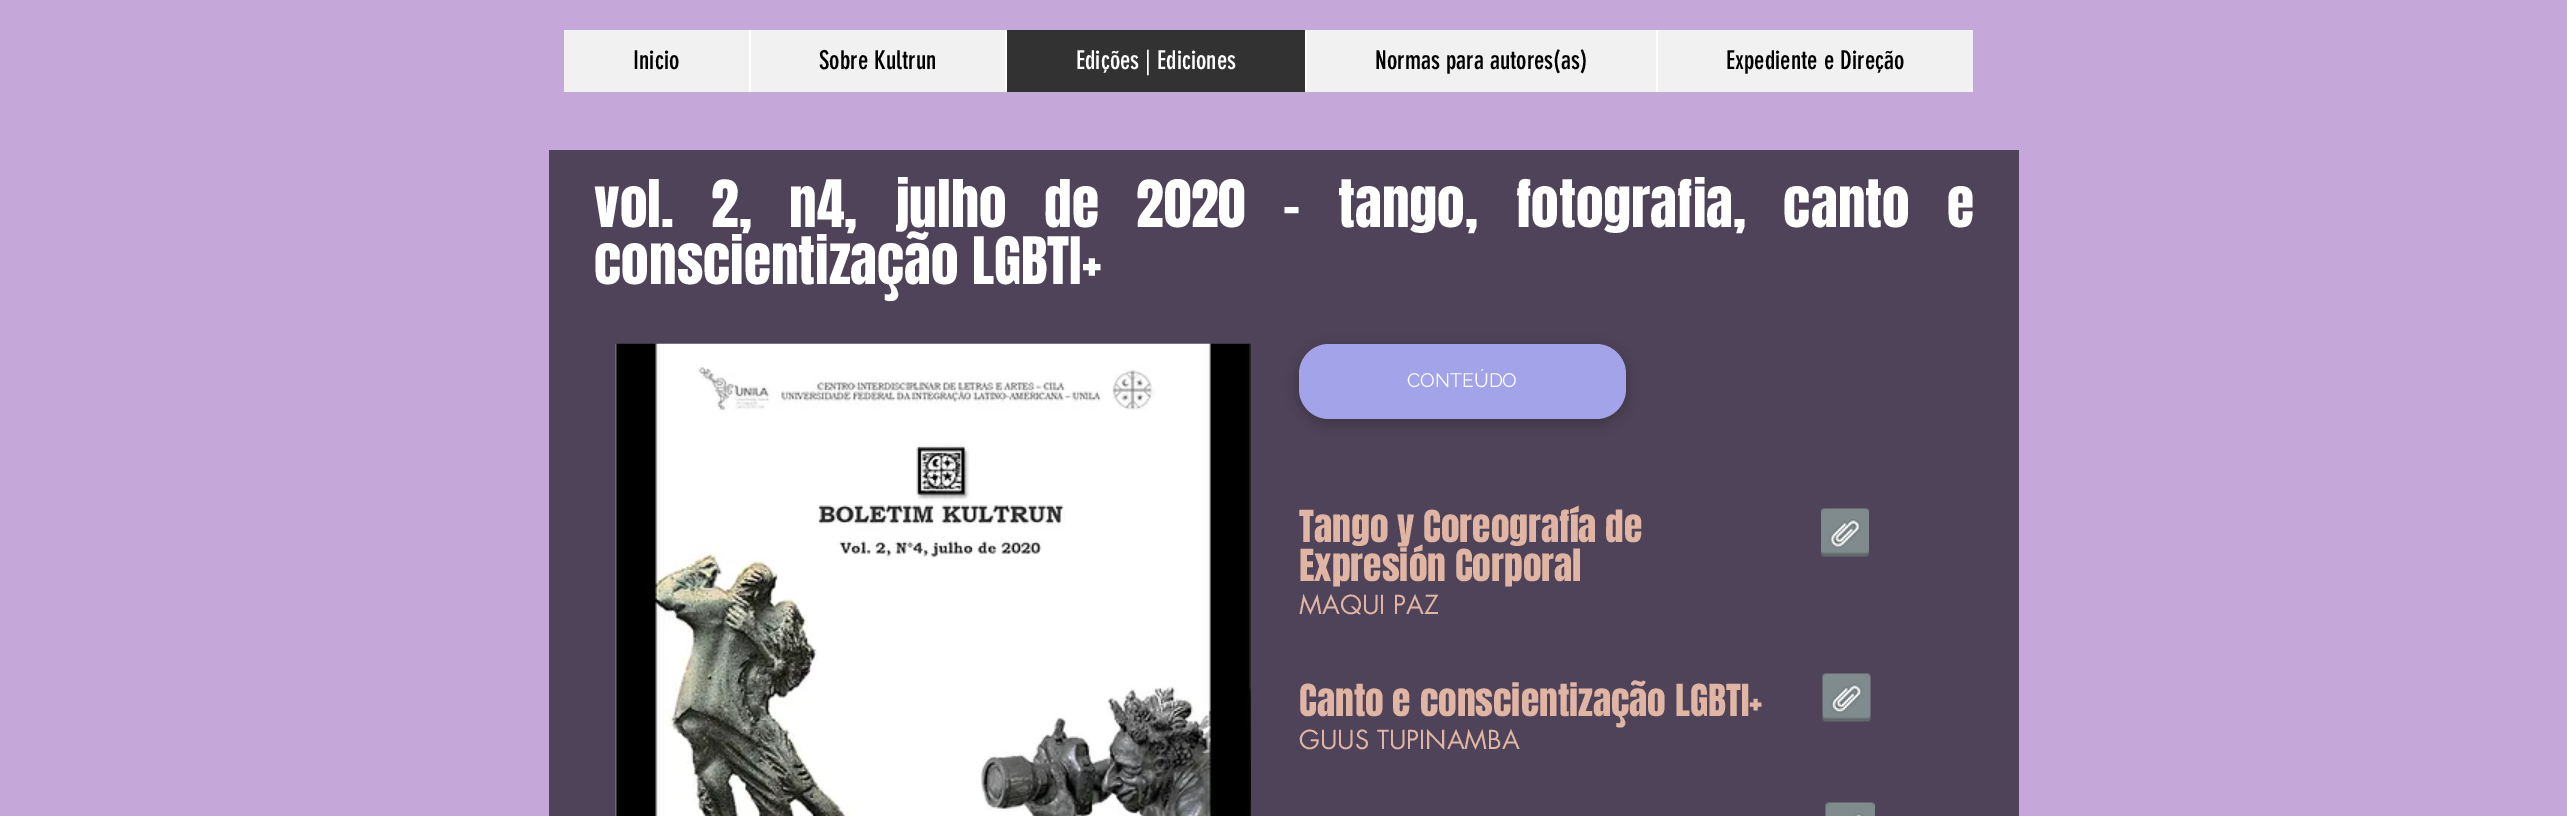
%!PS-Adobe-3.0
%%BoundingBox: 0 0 2567 816
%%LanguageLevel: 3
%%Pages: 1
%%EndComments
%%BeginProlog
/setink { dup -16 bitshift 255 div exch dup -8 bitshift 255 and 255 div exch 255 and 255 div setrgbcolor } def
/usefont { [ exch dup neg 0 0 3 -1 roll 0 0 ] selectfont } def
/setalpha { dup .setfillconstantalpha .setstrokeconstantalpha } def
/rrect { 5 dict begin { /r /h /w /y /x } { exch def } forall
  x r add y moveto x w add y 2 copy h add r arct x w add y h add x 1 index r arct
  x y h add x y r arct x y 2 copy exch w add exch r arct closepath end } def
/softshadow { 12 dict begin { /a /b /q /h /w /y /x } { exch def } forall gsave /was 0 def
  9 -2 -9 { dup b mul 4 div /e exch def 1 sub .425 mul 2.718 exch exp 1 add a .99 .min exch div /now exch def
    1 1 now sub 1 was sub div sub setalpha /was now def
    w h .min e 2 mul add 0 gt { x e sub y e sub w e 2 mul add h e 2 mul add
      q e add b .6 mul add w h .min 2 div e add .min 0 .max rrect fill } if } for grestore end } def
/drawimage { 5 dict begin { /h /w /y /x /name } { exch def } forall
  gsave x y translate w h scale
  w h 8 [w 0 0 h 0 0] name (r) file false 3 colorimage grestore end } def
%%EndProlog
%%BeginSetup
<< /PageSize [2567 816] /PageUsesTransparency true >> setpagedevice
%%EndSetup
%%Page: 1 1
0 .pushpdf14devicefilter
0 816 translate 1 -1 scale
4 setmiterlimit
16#C5A7D9 setink
0 0 2567 816 rectfill
16#F1F1F1 setink
564 30 1409 62 rectfill
/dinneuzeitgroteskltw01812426-Regular 25.5 usefont
16#000000 setink
633 69 moveto (Inicio) show
16#FFFFFF setink
749 30 2 62 rectfill
16#000000 setink
819 69 moveto (Sobre Kultrun) show
16#323232 setink
1007 30 298 62 rectfill
16#FFFFFF setink
1005 30 2 62 rectfill
1076 69 moveto (Edições | Ediciones) show
1305 30 2 62 rectfill
16#000000 setink
1375 69 moveto (Normas para autores\(as\)) show
16#FFFFFF setink
1656 30 2 62 rectfill
16#000000 setink
1726 69 moveto (Expediente e Direção) show
16#4E4358 setink
549 150 1470 666 rectfill
/Anton-Regular 55.5 usefont
16#FFFFFF setink
594 227 moveto 24.5 0 32 (vol. 2, n4, julho de 2020 - tango, fotografia, canto e) widthshow
594 284 moveto (conscientização LGBTI+) show
(img1.raw) 615 343 636 473 drawimage
16#000000 setink
1299 348 327 75 30 7 0.23 softshadow
16#A2A3E9 setink
1299 344 327 75 30 rrect fill
/Raleway-Regular 19.5 usefont
16#FFFFFF setink
1407 387 moveto (CONTEÚDO) show
/Anton-Regular 37.5 usefont
16#E0B5A4 setink
1299 542 moveto (Tango y Coreografía de) show
1299 581 moveto (Expresión Corporal) show
(img2.raw) 1821 508 48 49 drawimage
/futura-Regular 25.5 usefont
1299 614 moveto (MAQUI PAZ) show
/Anton-Regular 37.5 usefont
1299 716 moveto (Canto e conscientização LGBTI+) show
(img3.raw) 1822 673 49 49 drawimage
/futura-Regular 25.5 usefont
1299 749 moveto (GUUS TUPINAMBA) show
(img4.raw) 1825 802 50 14 drawimage
.poppdf14devicefilter showpage
%%EOF
